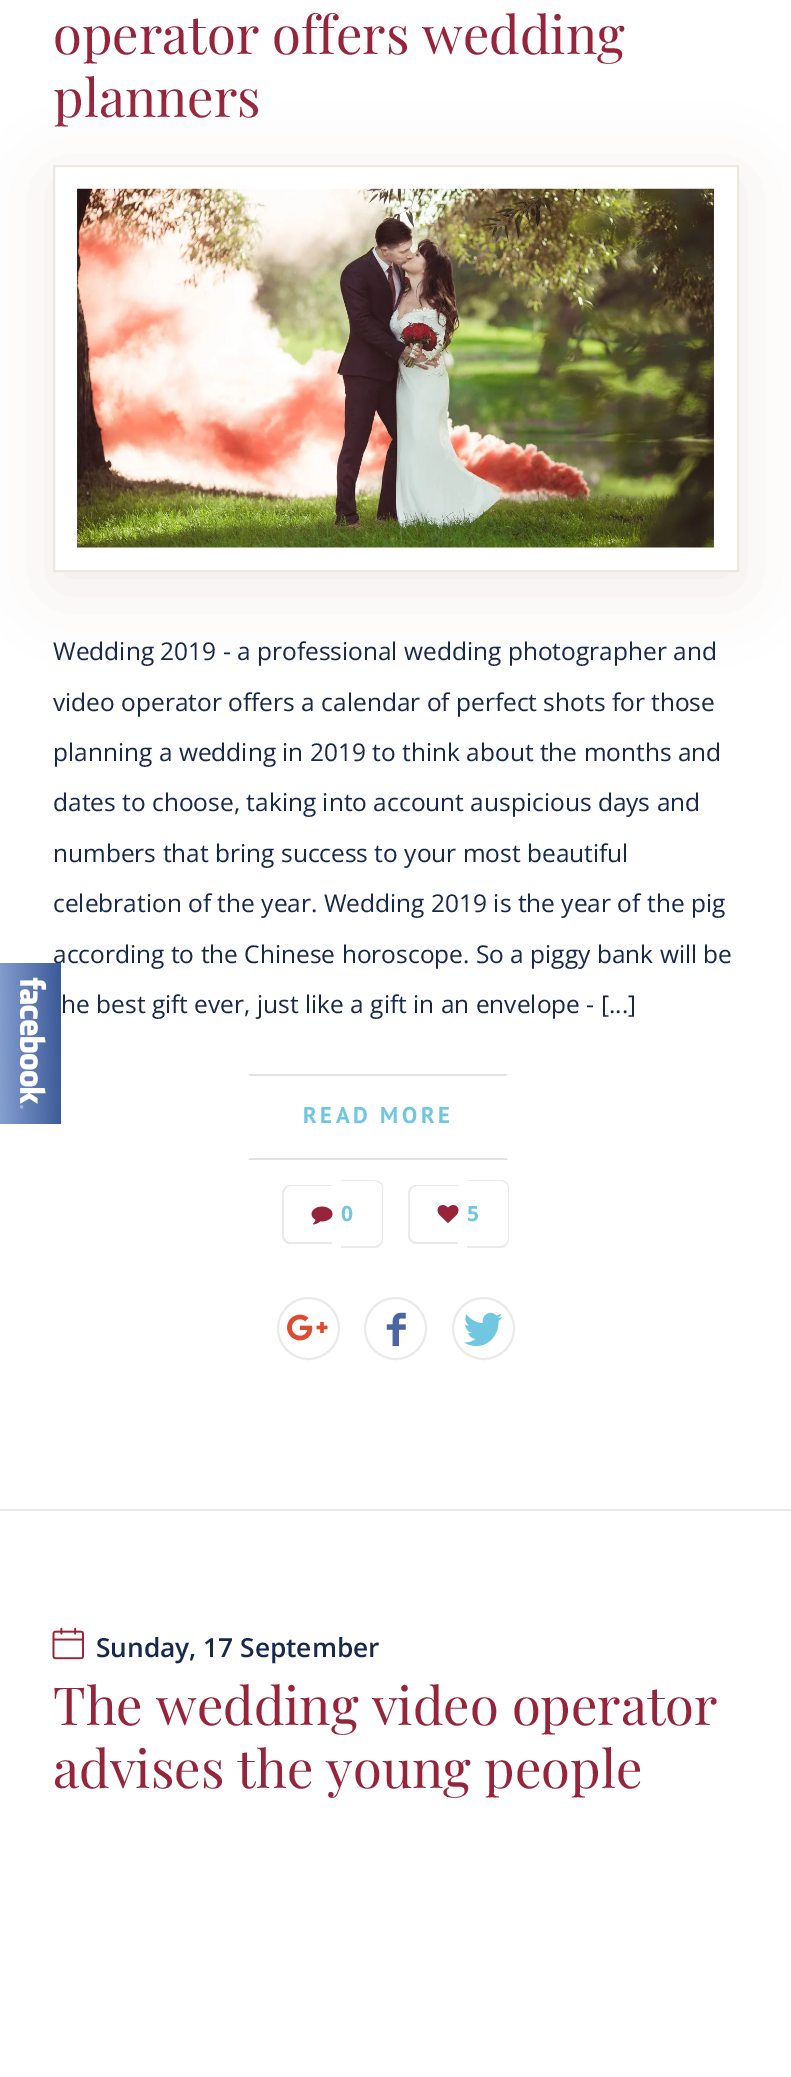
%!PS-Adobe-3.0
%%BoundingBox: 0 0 791 2077
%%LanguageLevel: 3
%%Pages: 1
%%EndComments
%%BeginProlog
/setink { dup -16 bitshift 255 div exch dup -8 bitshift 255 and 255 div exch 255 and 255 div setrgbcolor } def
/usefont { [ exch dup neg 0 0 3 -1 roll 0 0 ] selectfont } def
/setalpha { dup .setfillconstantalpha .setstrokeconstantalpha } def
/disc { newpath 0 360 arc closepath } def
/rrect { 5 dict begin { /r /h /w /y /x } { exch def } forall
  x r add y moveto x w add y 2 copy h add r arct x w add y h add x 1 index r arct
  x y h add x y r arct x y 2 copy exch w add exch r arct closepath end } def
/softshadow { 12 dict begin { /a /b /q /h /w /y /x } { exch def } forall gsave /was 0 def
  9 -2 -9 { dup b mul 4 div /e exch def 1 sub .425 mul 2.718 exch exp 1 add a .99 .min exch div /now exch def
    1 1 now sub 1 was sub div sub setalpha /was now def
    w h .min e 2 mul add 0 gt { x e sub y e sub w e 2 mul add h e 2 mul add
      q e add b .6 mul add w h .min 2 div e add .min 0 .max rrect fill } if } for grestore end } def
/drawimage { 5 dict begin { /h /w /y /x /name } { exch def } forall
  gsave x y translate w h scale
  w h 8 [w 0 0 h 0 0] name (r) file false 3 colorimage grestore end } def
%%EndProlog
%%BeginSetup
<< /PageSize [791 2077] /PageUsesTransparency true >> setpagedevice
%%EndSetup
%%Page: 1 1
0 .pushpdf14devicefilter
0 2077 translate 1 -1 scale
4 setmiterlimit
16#FFFFFF setink
0 0 791 2077 rectfill
/OpenSans-Regular 24.5 usefont
16#17284D setink
53 963 moveto (according to the Chinese horoscope. So a piggy bank will be) show
(img1.raw) 0 963 61 161 drawimage
/PlayfairDisplay-Regular 52.5 usefont
16#96243A setink
53 54 moveto (operator offers wedding) show
53 117 moveto (planners) show
16#EAE4DF setink
53 180 686 408 0 35 0.68 softshadow
16#FFFFFF setink
54 166 moveto 738 166 lineto 738 571 lineto 54 571 lineto closepath gsave fill grestore
16#ECE8DF setink
2 setlinewidth
stroke
(img2.raw) 77 188 637 360 drawimage
/OpenSans-Regular 24.5 usefont
16#17284D setink
[
    [(Wedding 2019 - a professional wedding photographer and) 53 660]
    [(video operator offers a calendar of perfect shots for those) 53 711]
    [(planning a wedding in 2019 to think about the months and) 53 761]
    [(dates to choose, taking into account auspicious days and) 53 811]
    [(numbers that bring success to your most beautiful) 53 862]
    [(celebration of the year. Wedding 2019 is the year of the pig) 53 912]
    [(he best gift ever, just like a gift in an envelope - [...]) 61 1013]
] { aload pop moveto show } forall
16#E2E2E2 setink
248 1074 moveto 508 1074 lineto 506 1076 lineto 250 1076 lineto closepath fill
508 1160 moveto 248 1160 lineto 250 1158 lineto 506 1158 lineto closepath fill
/PTSans-Bold 22.75 usefont
16#71C7E0 setink
303 1123 moveto 3.5 0 (READ MORE) ashow
16#EAEAEA setink
290 1185 moveto 332 1185 lineto 332 1244 lineto 290 1244 lineto 286 1244 282 1240 282 1236 curveto 282 1194 lineto 282 1189 286 1185 290 1185 curveto closepath 290 1186 moveto 332 1186 lineto 332 1242 lineto 290 1242 lineto 287 1242 284 1239 284 1236 curveto 284 1194 lineto 284 1190 287 1186 290 1186 curveto closepath eofill
341 1180 moveto 374 1180 lineto 379 1180 383 1183 383 1188 curveto 383 1239 lineto 383 1244 379 1248 374 1248 curveto 341 1248 lineto closepath 341 1181 moveto 374 1181 lineto 378 1181 382 1184 382 1188 curveto 382 1239 lineto 382 1243 378 1246 374 1246 curveto 341 1246 lineto closepath eofill
(img3.raw) 311 1206 22 19 drawimage
/OpenSans-Bold 21 usefont
16#71C7E0 setink
341 1221 moveto (0) show
16#EAEAEA setink
416 1185 moveto 458 1185 lineto 458 1244 lineto 416 1244 lineto 412 1244 408 1240 408 1236 curveto 408 1194 lineto 408 1189 412 1185 416 1185 curveto closepath 416 1186 moveto 458 1186 lineto 458 1242 lineto 416 1242 lineto 413 1242 410 1239 410 1236 curveto 410 1194 lineto 410 1190 413 1186 416 1186 curveto closepath eofill
467 1180 moveto 500 1180 lineto 505 1180 509 1183 509 1188 curveto 509 1239 lineto 509 1244 505 1248 500 1248 curveto 467 1248 lineto closepath 467 1181 moveto 500 1181 lineto 504 1181 508 1184 508 1188 curveto 508 1239 lineto 508 1243 504 1246 500 1246 curveto 467 1246 lineto closepath eofill
(img4.raw) 437 1205 22 18 drawimage
16#71C7E0 setink
467 1221 moveto (5) show
16#EAEAEA setink
308.5 1328.5 30.5 disc stroke
(img5.raw) 287 1314 41 27 drawimage
395.5 1328.5 30.5 disc stroke
(img6.raw) 386 1312 20 35 drawimage
483.5 1328.5 30.5 disc stroke
(img7.raw) 464 1312 39 35 drawimage
16#E5E7EB setink
0 1509 791 2 rectfill
(img8.raw) 52 1627 32 33 drawimage
/OpenSans-SemiBold 26.25 usefont
16#17284D setink
96 1657 moveto (Sunday, 17 September) show
/PlayfairDisplay-Regular 52.5 usefont
16#96243A setink
53 1725 moveto (The wedding video operator) show
53 1788 moveto (advises the young people) show
.poppdf14devicefilter showpage
%%EOF
